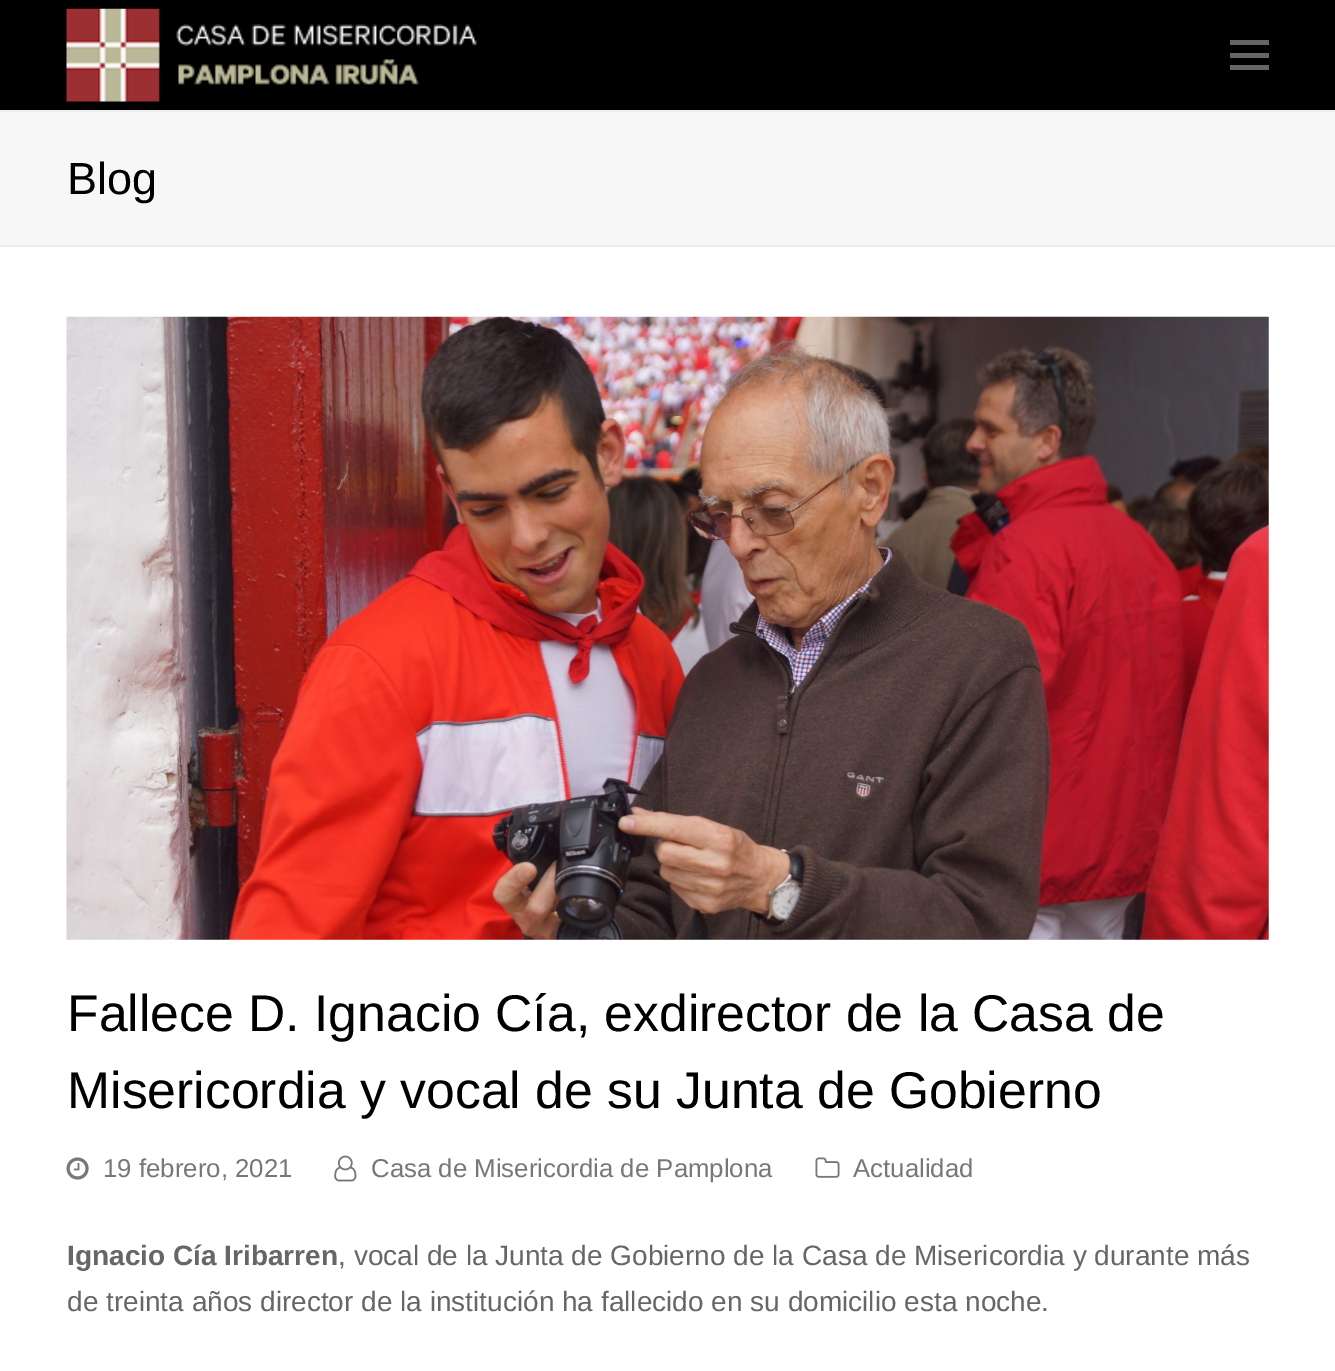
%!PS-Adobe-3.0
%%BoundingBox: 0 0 1335 1371
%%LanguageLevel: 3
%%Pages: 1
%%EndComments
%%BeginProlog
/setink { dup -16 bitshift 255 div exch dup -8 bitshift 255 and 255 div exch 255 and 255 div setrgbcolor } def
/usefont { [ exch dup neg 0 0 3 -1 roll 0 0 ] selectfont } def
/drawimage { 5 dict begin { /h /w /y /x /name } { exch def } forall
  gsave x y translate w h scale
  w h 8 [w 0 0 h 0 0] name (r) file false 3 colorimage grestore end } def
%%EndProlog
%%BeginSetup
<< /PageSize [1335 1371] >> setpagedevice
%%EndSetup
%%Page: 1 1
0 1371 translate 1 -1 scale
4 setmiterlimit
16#FFFFFF setink
0 0 1335 1371 rectfill
16#000000 setink
0 0 1335 110 rectfill
(img1.raw) 66 8 411 94 drawimage
[
    [1230 53 39 5 16#666666]
    [1230 40 39 5 16#666666]
    [1230 65 39 5 16#666666]
    [0 112 1335 133 16#F7F7F7]
    [0 110 1335 2 16#EEEEEE]
    [0 245 1335 2 16#EEEEEE]
] { aload pop setink rectfill } forall
/LiberationSans-Regular 45 usefont
16#000000 setink
67 194 moveto (Blog) show
(img2.raw) 66 316 1203 624 drawimage
/LiberationSans-Regular 51.7 usefont
67 1031 moveto (Fallece D. Ignacio Cía, exdirector de la Casa de) show
67 1108 moveto (Misericordia y vocal de su Junta de Gobierno) show
(img3.raw) 66 1157 23 23 drawimage
/LiberationSans-Regular 25.8 usefont
16#777777 setink
103 1177 moveto (19 febrero, 2021) show
(img4.raw) 334 1155 23 27 drawimage
371 1177 moveto (Casa de Misericordia de Pamplona) show
(img5.raw) 815 1157 25 21 drawimage
853 1177 moveto (Actualidad) show
/LiberationSans-Bold 28 usefont
16#666666 setink
67 1265 moveto (Ignacio Cía Iribarren) show
/LiberationSans-Regular 28 usefont
338 1265 moveto (, vocal de la Junta de Gobierno de la Casa de Misericordia y durante más) show
67 1311 moveto (de treinta años director de la institución ha fallecido en su domicilio esta noche.) show
showpage
%%EOF
